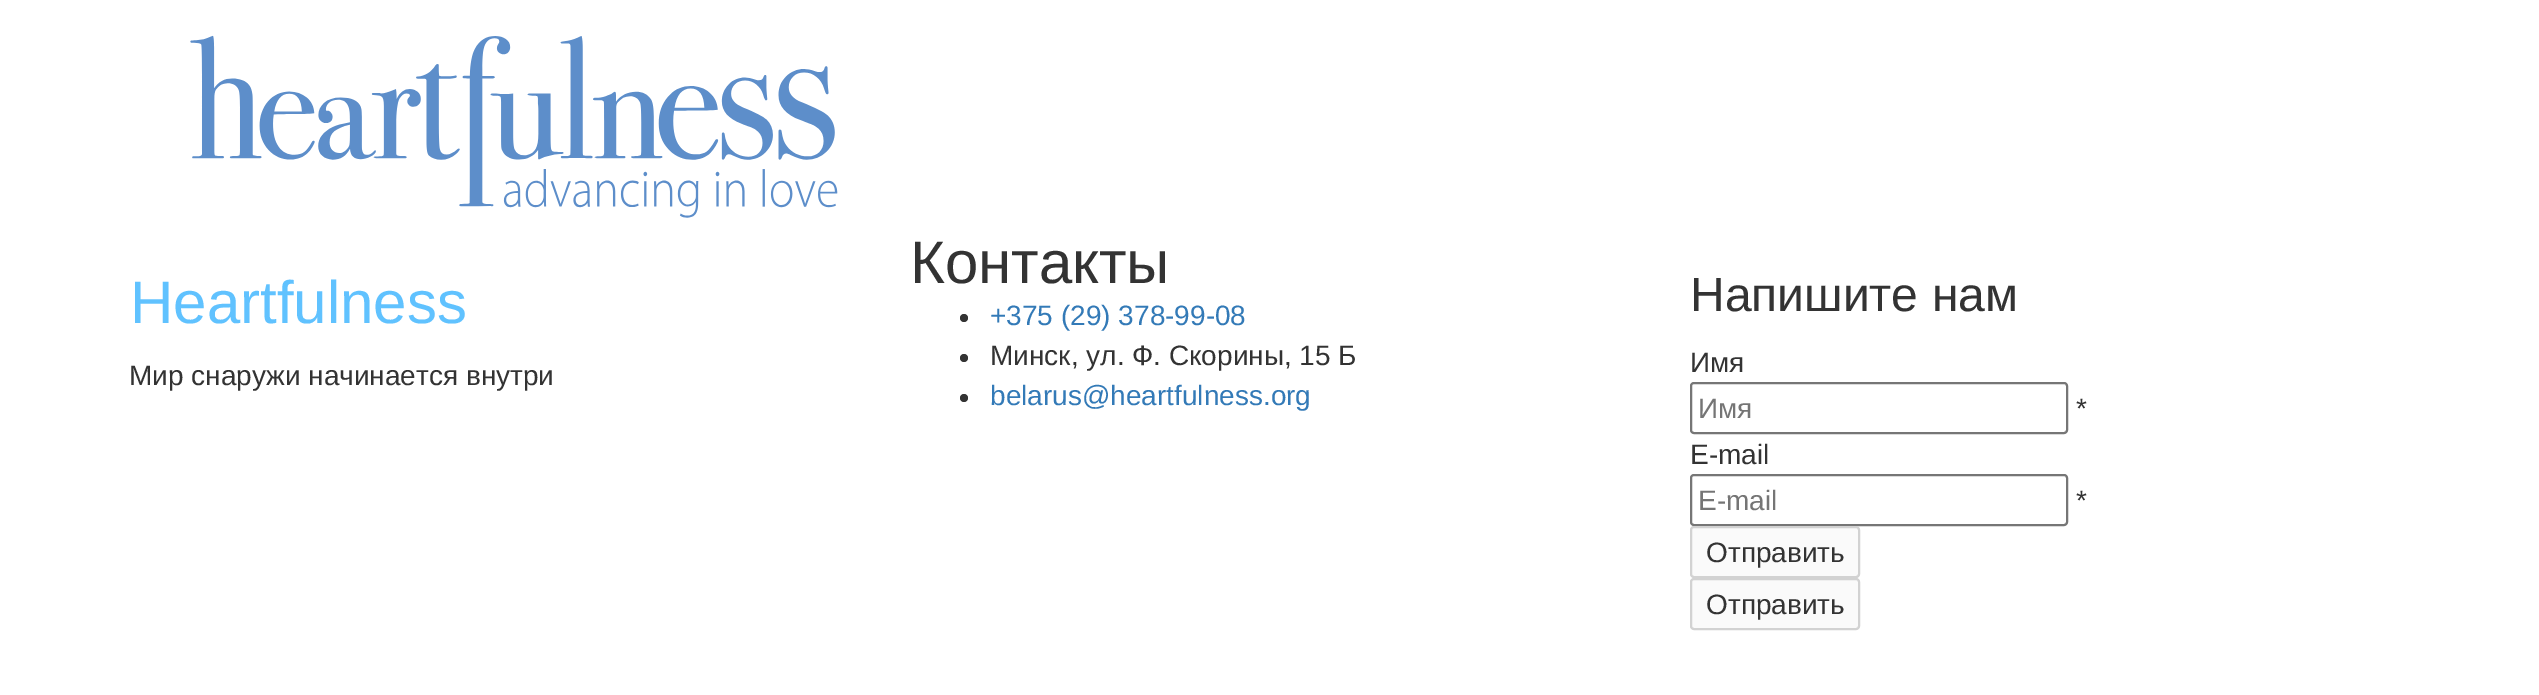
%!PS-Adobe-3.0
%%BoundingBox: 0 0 2539 695
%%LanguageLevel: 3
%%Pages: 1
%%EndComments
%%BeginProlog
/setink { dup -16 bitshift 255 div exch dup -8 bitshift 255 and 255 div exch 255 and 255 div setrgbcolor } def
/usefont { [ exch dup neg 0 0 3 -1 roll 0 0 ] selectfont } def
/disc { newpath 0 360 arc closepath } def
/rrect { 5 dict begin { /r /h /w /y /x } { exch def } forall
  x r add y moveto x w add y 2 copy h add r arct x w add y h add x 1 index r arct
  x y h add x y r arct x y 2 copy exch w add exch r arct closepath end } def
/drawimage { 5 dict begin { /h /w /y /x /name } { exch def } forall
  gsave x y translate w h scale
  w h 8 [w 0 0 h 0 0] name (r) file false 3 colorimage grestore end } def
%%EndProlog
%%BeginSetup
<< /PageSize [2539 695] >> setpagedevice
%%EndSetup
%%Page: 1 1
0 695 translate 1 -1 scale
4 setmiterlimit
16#FFFFFF setink
0 0 2539 695 rectfill
(img1.raw) 190 35 648 183 drawimage
/LiberationSans-Regular 60 usefont
16#60C2FF setink
130 323 moveto (Heartfulness) show
/LiberationSans-Regular 28 usefont
16#333333 setink
129 385 moveto (Мир снаружи начинается внутри) show
/LiberationSans-Regular 60 usefont
910 283 moveto (Контакты) show
964 318 4 disc fill
/LiberationSans-Regular 28 usefont
16#337AB7 setink
990 325 moveto (+375 \(29\) 378-99-08) show
16#333333 setink
964 358 4 disc fill
990 365 moveto (Минск, ул. Ф. Скорины, 15 Б) show
964 398 4 disc fill
16#337AB7 setink
990 405 moveto (belarus@heartfulness.org) show
/LiberationSans-Regular 48 usefont
16#333333 setink
1690 311 moveto (Напишите нам) show
/LiberationSans-Regular 28 usefont
1690 372 moveto (Имя) show
16#767676 setink
2 setlinewidth
1691 383 376 50 3 rrect stroke
16#757575 setink
1698 418 moveto (Имя) show
16#333333 setink
2076 418 moveto (*) show
1690 464 moveto (E-mail) show
16#767676 setink
1691 475 376 50 3 rrect stroke
16#757575 setink
1698 510 moveto (E-mail) show
16#333333 setink
2076 510 moveto (*) show
16#FAFAFA setink
1691 527 168 50 3 rrect gsave fill grestore
16#D2D2D2 setink
stroke
16#333333 setink
1706 562 moveto (Отправить) show
16#FAFAFA setink
1691 579 168 50 3 rrect gsave fill grestore
16#D2D2D2 setink
stroke
16#333333 setink
1706 614 moveto (Отправить) show
showpage
%%EOF
